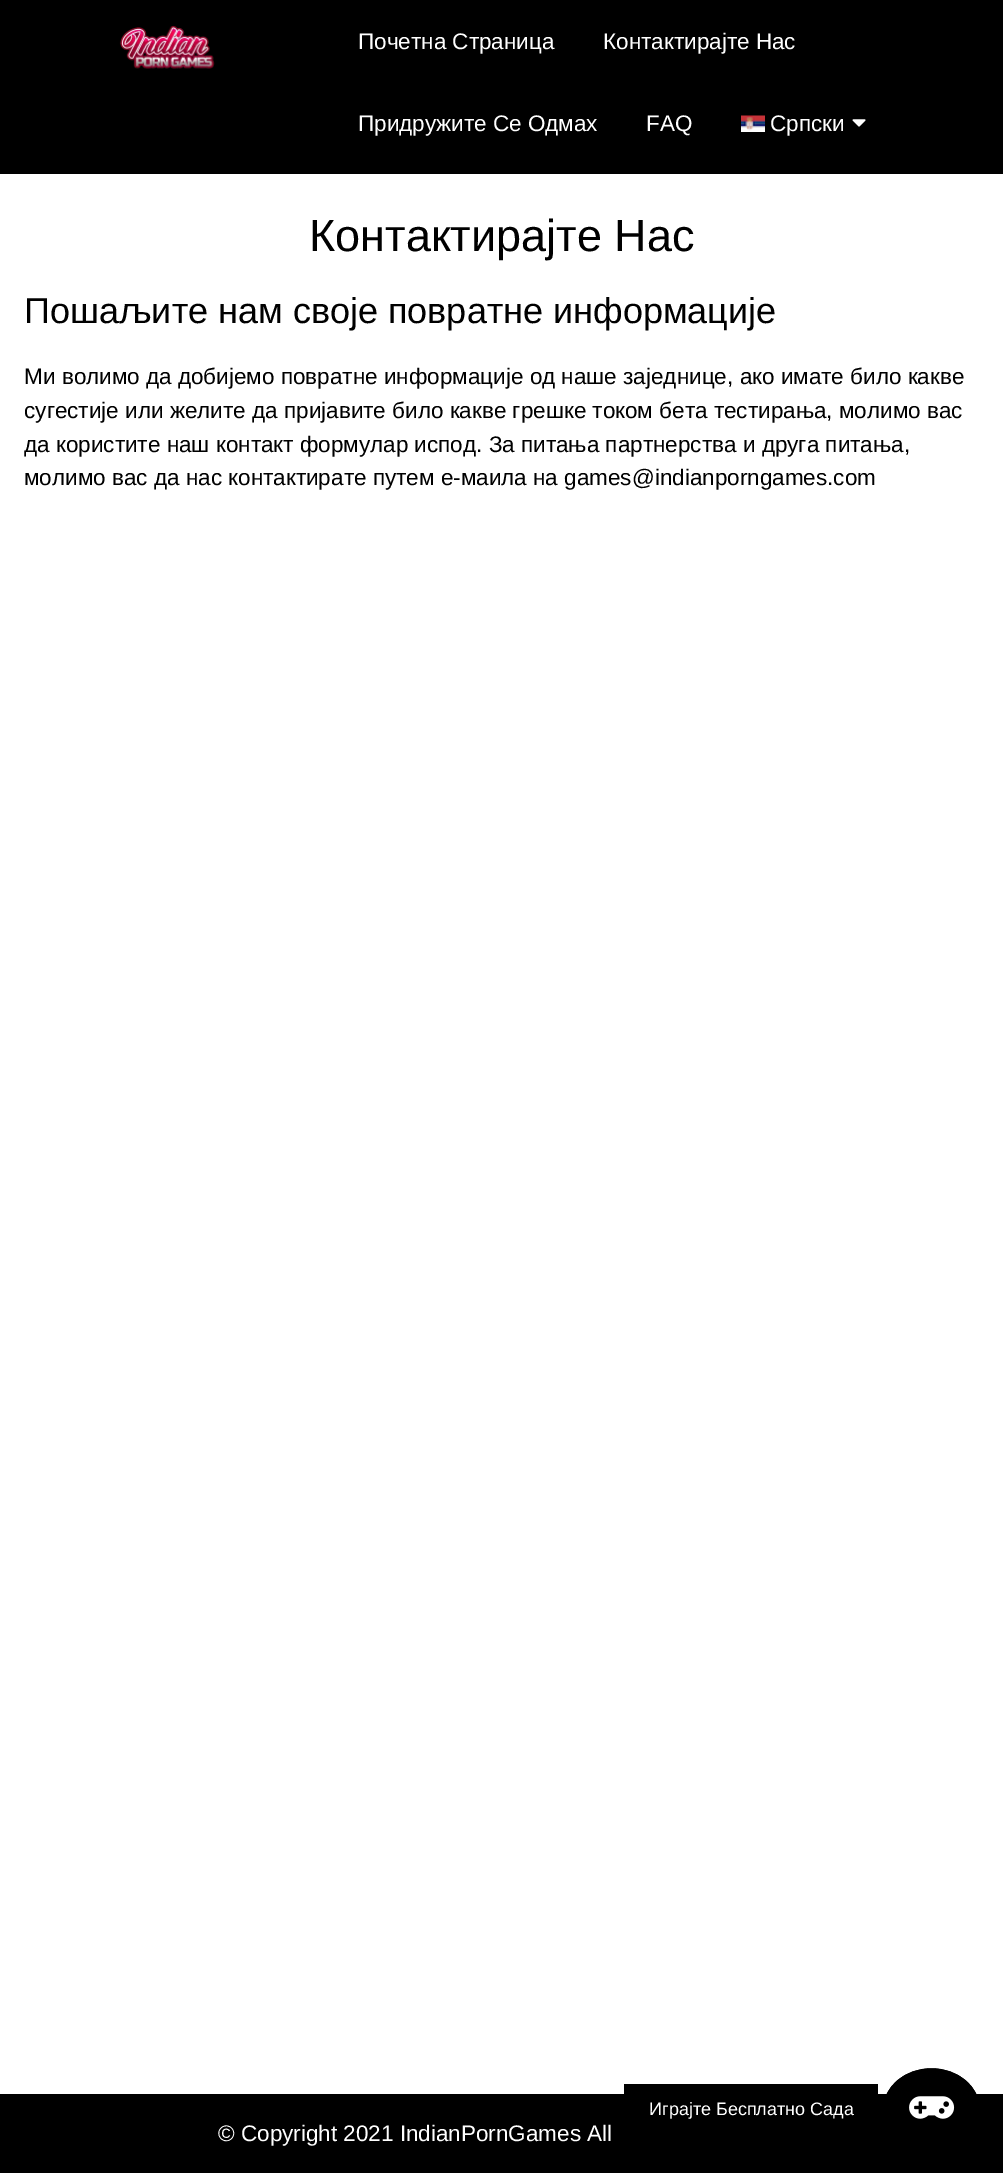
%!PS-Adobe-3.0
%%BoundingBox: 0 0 1003 2173
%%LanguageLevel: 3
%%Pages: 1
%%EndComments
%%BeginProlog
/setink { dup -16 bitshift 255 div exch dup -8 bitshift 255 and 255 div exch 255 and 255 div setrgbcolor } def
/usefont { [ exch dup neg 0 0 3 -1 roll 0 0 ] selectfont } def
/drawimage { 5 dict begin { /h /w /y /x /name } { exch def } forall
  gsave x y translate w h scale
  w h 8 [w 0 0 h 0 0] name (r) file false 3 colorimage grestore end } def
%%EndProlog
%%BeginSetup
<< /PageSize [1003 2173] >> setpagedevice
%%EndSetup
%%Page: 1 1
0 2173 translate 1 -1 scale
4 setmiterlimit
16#FFFFFF setink
0 0 1003 2173 rectfill
16#000000 setink
0 0 1003 174 rectfill
(img1.raw) 119 25 96 44 drawimage
/LiberationSans-Regular 22.5 usefont
16#FFFFFF setink
[
    [(Почетна Страница) 358 49]
    [(Контактирајте Нас) 603 49]
    [(Придружите Се Одмах) 358 131]
    [(FAQ) 646 131]
] { aload pop moveto show } forall
(img2.raw) 741 115 24 17 drawimage
770 131 moveto (Српски) show
(img3.raw) 852 119 14 8 drawimage
/LiberationSans-Regular 45 usefont
16#000000 setink
309 251 moveto (Контактирајте Нас) show
/LiberationSans-Regular 36 usefont
24 323 moveto (Пошаљите нам своје повратне информације) show
/LiberationSans-Regular 22.5 usefont
[
    [(Ми волимо да добијемо повратне информације од наше заједнице, ако имате било какве) 24 384]
    [(сугестије или желите да пријавите било какве грешке током бета тестирања, молимо вас) 24 418]
    [(да користите наш контакт формулар испод. За питања партнерства и друга питања,) 24 452]
    [(молимо вас да нас контактирате путем е-маила на games@indianporngames.com) 24 485]
] { aload pop moveto show } forall
624 2084 254 10 rectfill
0 2094 1003 79 rectfill
/LiberationSans-Regular 18 usefont
16#FFFFFF setink
649 2115 moveto (Играјте Бесплатно Сада) show
16#000000 setink
931.5 2068.5 moveto 958 2068.5 979.5 2086.5 979.5 2109 curveto 979.5 2131.5 958 2149.5 931.5 2149.5 curveto 905 2149.5 883.5 2131.5 883.5 2109 curveto 883.5 2086.5 905 2068.5 931.5 2068.5 curveto closepath fill
1.5 setlinewidth
931.5 2069 moveto 957.5 2069 979 2087 979 2109 curveto 979 2131 957.5 2149 931.5 2149 curveto 905.5 2149 884 2131 884 2109 curveto 884 2087 905.5 2069 931.5 2069 curveto closepath stroke
(img4.raw) 909 2096 46 23 drawimage
/LiberationSans-Regular 22.5 usefont
16#FFFFFF setink
218 2141 moveto (© Copyright 2021 IndianPornGames All) show
showpage
%%EOF
